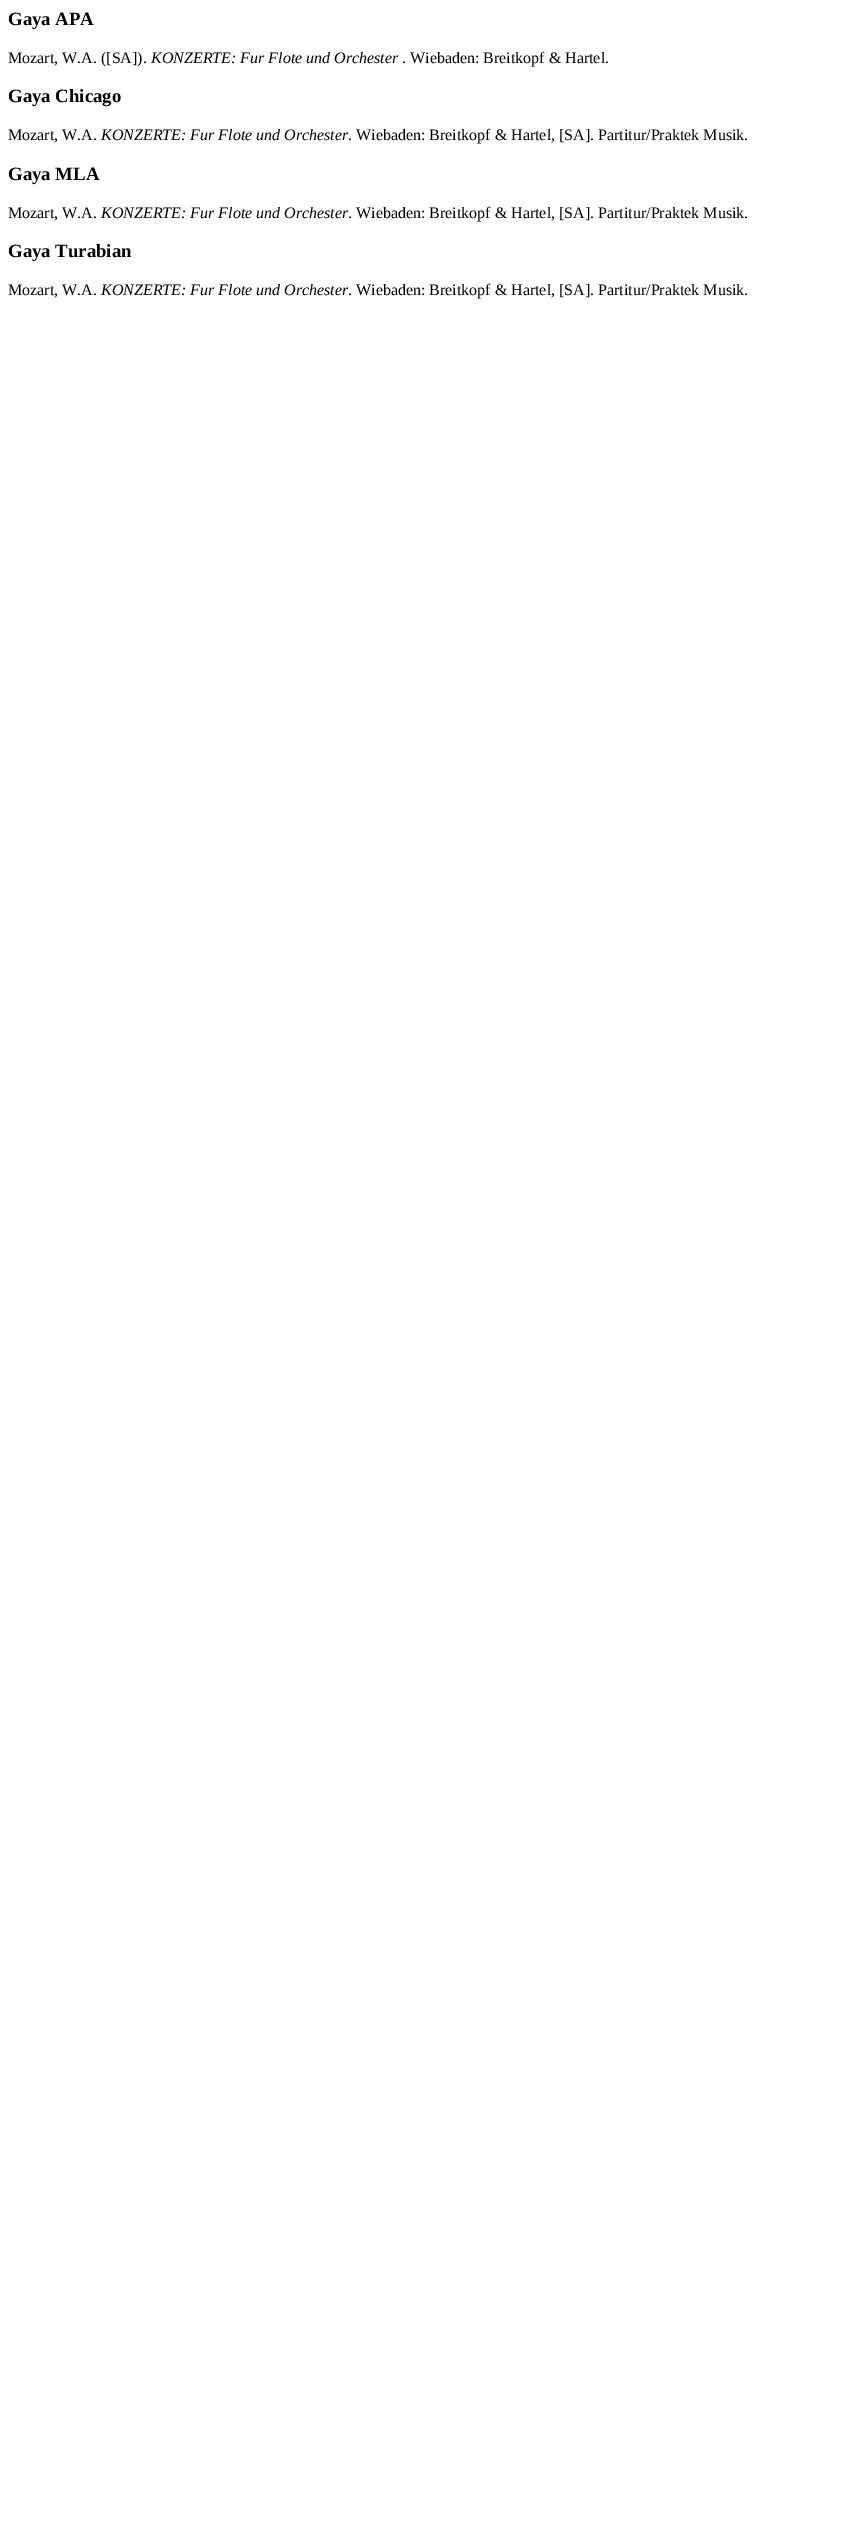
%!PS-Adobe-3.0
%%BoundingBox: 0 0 868 2548
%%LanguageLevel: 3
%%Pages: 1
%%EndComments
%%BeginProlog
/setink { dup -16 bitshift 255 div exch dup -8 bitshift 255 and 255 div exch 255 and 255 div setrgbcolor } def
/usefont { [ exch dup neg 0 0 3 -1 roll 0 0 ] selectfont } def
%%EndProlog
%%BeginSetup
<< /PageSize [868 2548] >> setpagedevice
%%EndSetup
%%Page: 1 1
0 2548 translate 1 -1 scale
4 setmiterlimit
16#FFFFFF setink
0 0 868 2548 rectfill
/LiberationSerif-Bold 18.75 usefont
16#000000 setink
8 25 moveto (Gaya APA) show
/LiberationSerif-Regular 16 usefont
8 63 moveto (Mozart, W.A. \([SA]\).) show
/LiberationSerif-Italic 16 usefont
151 63 moveto (KONZERTE: Fur Flote und Orchester) show
/LiberationSerif-Regular 16 usefont
402 63 moveto (. Wiebaden: Breitkopf & Hartel.) show
/LiberationSerif-Bold 18.75 usefont
8 102 moveto (Gaya Chicago) show
/LiberationSerif-Regular 16 usefont
8 140 moveto (Mozart, W.A.) show
/LiberationSerif-Italic 16 usefont
101 140 moveto (KONZERTE: Fur Flote und Orchester) show
/LiberationSerif-Regular 16 usefont
348 140 moveto (. Wiebaden: Breitkopf & Hartel, [SA]. Partitur/Praktek Musik.) show
/LiberationSerif-Bold 18.75 usefont
8 180 moveto (Gaya MLA) show
/LiberationSerif-Regular 16 usefont
8 218 moveto (Mozart, W.A.) show
/LiberationSerif-Italic 16 usefont
101 218 moveto (KONZERTE: Fur Flote und Orchester) show
/LiberationSerif-Regular 16 usefont
348 218 moveto (. Wiebaden: Breitkopf & Hartel, [SA]. Partitur/Praktek Musik.) show
/LiberationSerif-Bold 18.75 usefont
8 257 moveto (Gaya Turabian) show
/LiberationSerif-Regular 16 usefont
8 295 moveto (Mozart, W.A.) show
/LiberationSerif-Italic 16 usefont
101 295 moveto (KONZERTE: Fur Flote und Orchester) show
/LiberationSerif-Regular 16 usefont
348 295 moveto (. Wiebaden: Breitkopf & Hartel, [SA]. Partitur/Praktek Musik.) show
showpage
%%EOF
